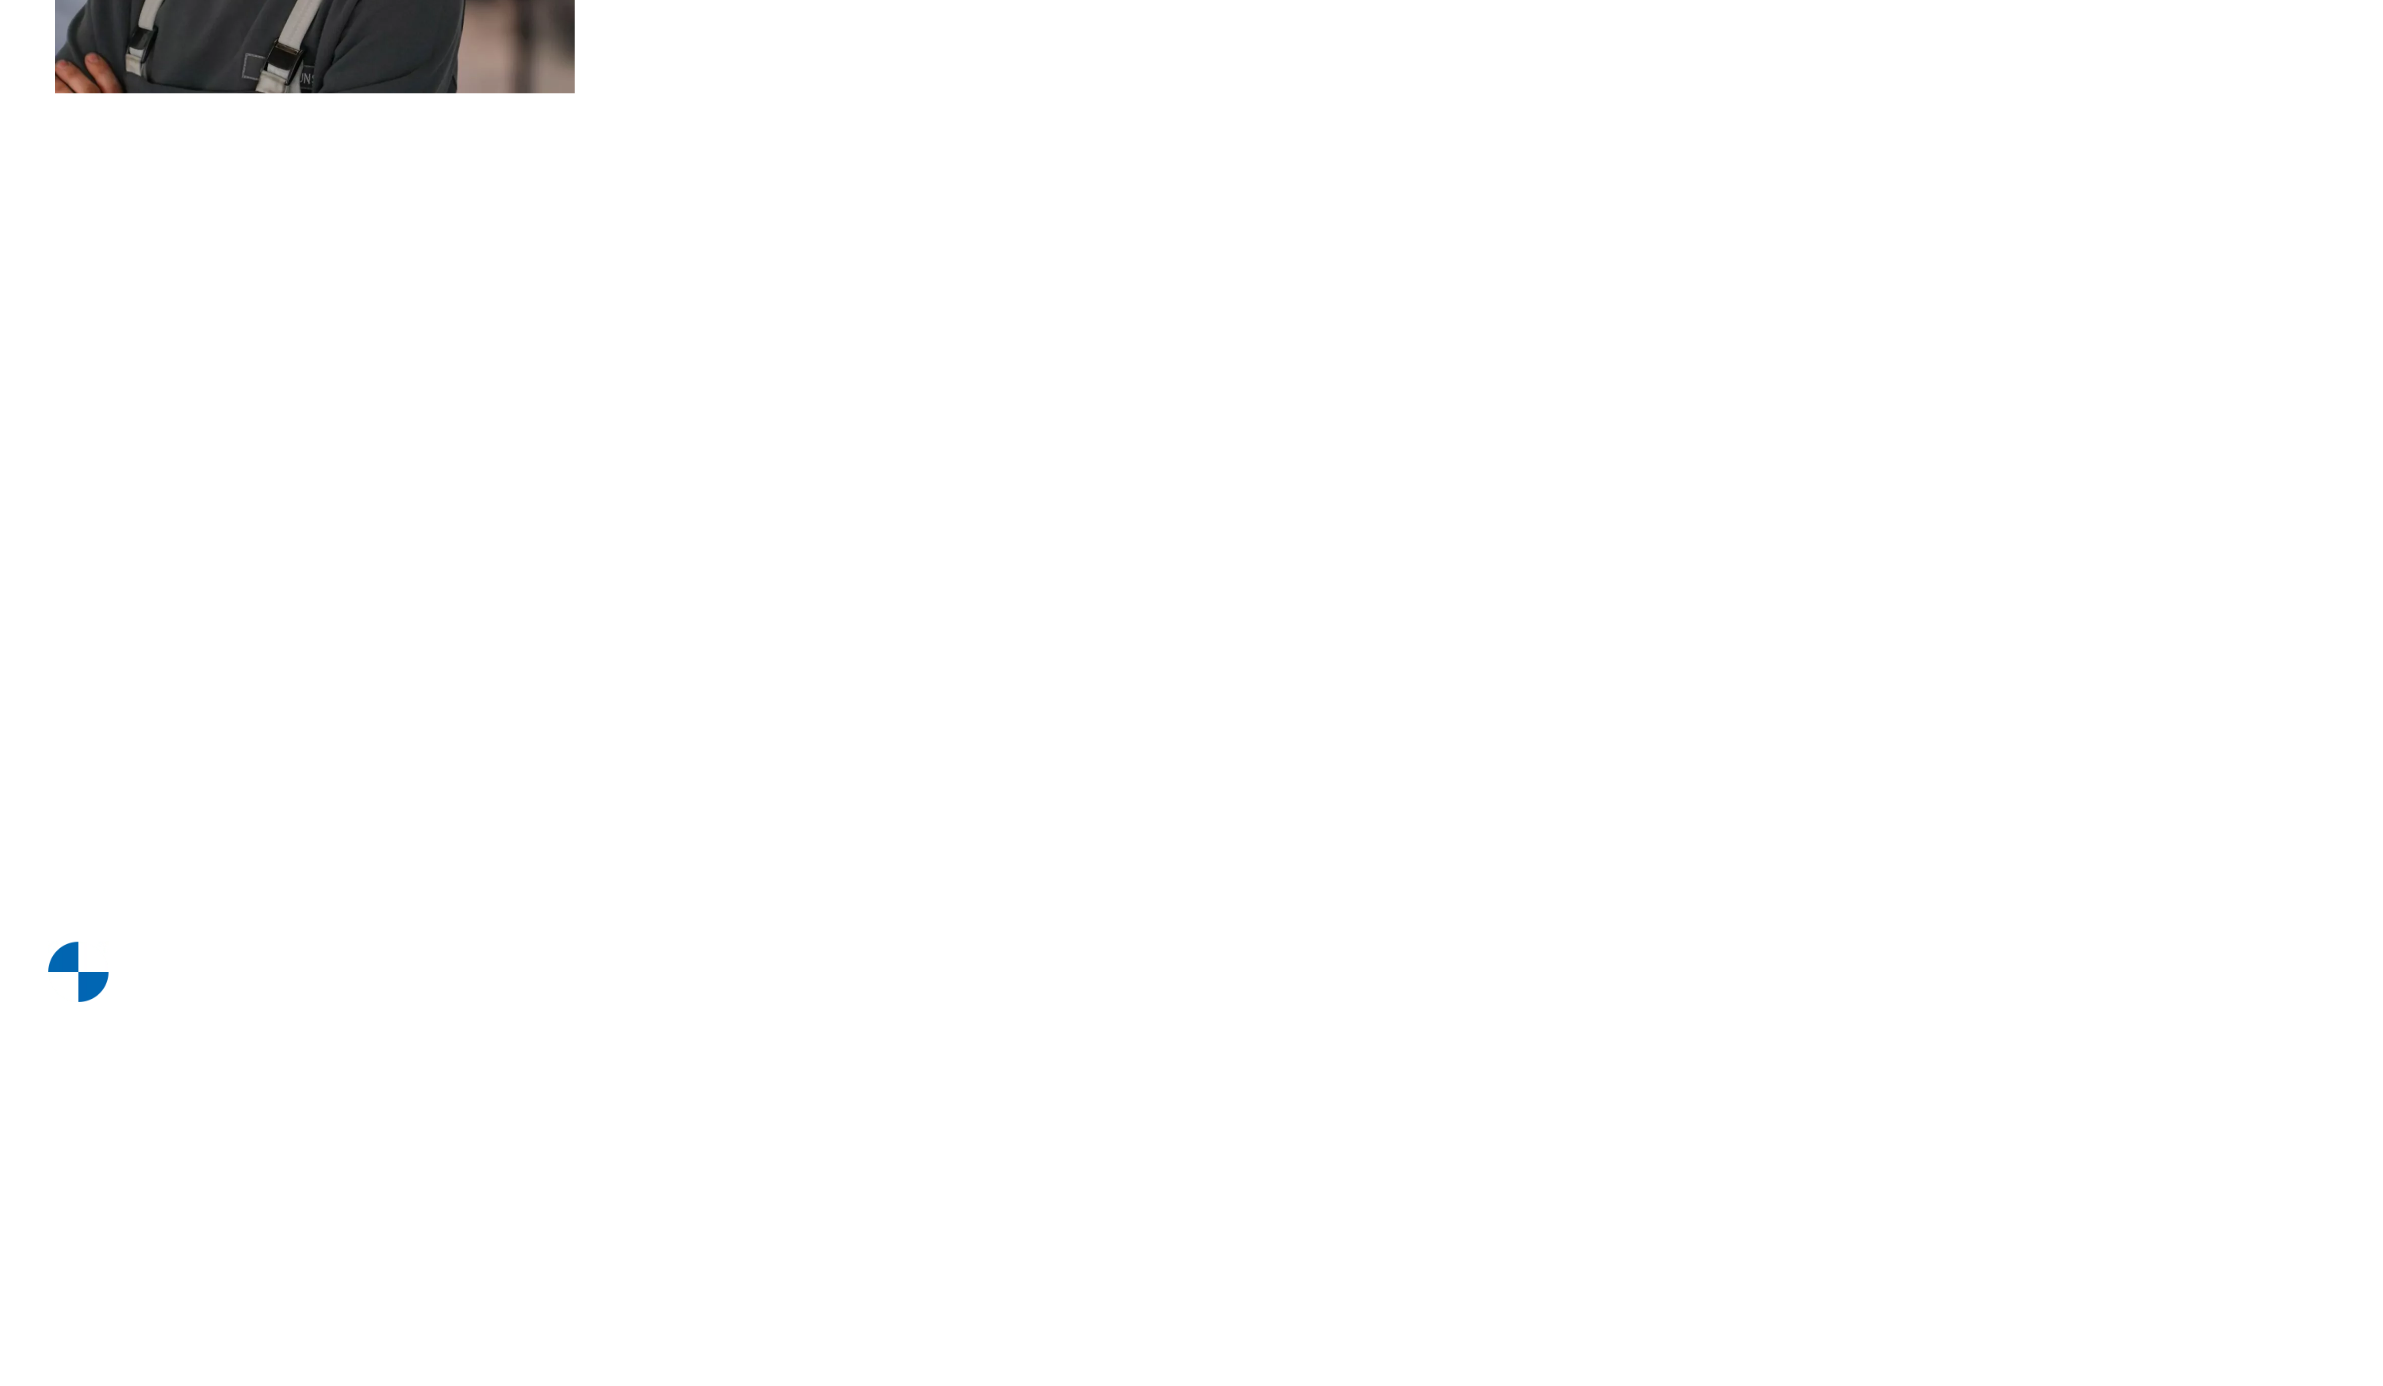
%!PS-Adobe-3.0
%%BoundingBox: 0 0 2383 1386
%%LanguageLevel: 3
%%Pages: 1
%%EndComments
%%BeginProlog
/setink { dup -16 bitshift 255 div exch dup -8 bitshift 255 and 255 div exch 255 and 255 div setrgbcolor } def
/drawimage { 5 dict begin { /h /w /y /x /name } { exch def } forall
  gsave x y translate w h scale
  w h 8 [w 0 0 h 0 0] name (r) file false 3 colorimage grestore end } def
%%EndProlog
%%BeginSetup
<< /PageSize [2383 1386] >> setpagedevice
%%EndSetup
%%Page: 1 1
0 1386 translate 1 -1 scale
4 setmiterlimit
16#FFFFFF setink
0 0 2383 1386 rectfill
(img1.raw) 55 0 520 94 drawimage
(img2.raw) 48 941 61 61 drawimage
showpage
%%EOF
